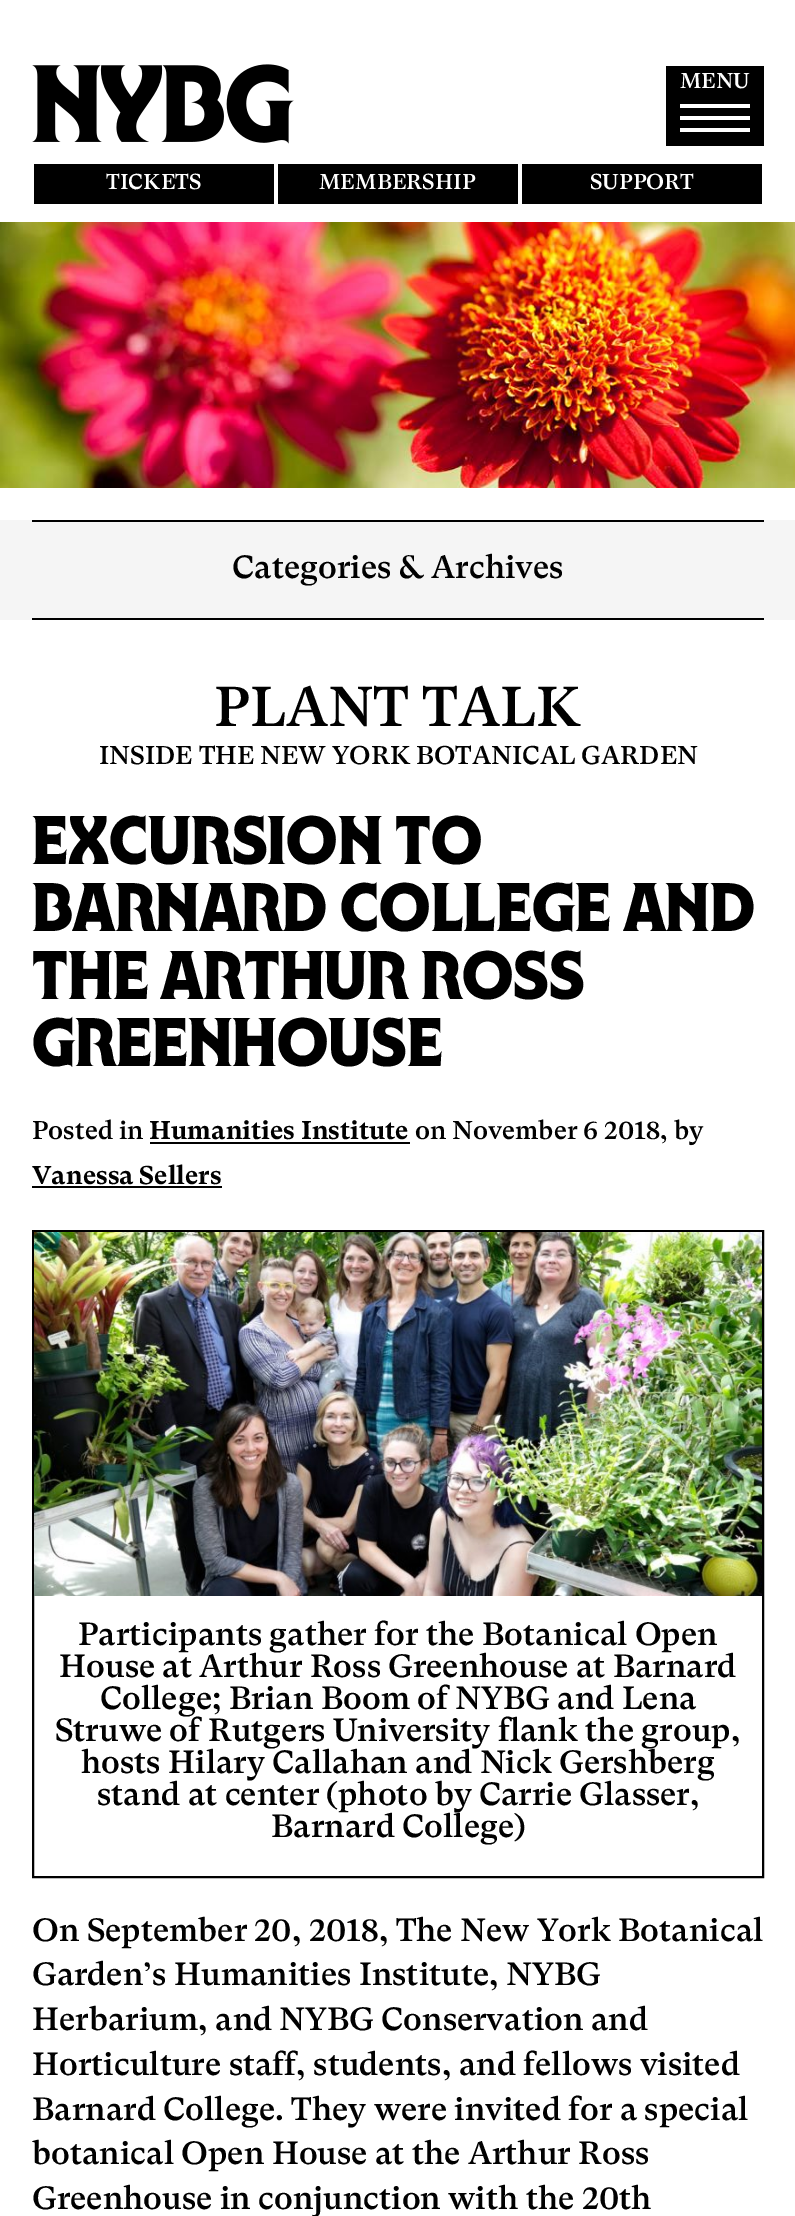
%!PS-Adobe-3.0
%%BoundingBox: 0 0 795 2216
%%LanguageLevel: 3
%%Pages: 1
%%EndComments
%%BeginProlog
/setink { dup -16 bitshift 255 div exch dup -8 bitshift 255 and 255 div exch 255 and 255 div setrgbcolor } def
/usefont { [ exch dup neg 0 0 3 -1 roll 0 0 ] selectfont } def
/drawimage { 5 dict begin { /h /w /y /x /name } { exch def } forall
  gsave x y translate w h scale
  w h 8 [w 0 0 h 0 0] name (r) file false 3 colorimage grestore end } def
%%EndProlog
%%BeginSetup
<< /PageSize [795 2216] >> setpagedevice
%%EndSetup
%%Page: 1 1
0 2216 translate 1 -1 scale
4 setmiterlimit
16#FFFFFF setink
0 0 795 2216 rectfill
(img1.raw) 32 64 262 80 drawimage
16#000000 setink
666 66 98 80 rectfill
/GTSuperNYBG-Medium 21.5 usefont
16#FFFFFF setink
680 88 moveto (MENU) show
[
    [680 104 70 4 16#FFFFFF]
    [680 116 70 4 16#FFFFFF]
    [680 128 70 4 16#FFFFFF]
    [34 164 240 40 16#000000]
] { aload pop setink rectfill } forall
16#FFFFFF setink
106 189 moveto (TICKETS) show
16#000000 setink
278 164 240 40 rectfill
16#FFFFFF setink
319 189 moveto (MEMBERSHIP) show
16#000000 setink
522 164 240 40 rectfill
16#FFFFFF setink
590 189 moveto (SUPPORT) show
(img2.raw) 0 222 795 266 drawimage
[
    [0 520 795 100 16#F5F5F5]
    [32 520 732 2 16#000000]
    [32 618 732 2 16#000000]
] { aload pop setink rectfill } forall
/GTSuperNYBG-Medium 32 usefont
232 578 moveto (Categories & Archives) show
/GTSuperNYBG-Medium 56 usefont
214 726 moveto (PLANT TALK) show
/GTSuperNYBG-Medium 25.6 usefont
99 764 moveto (INSIDE THE NEW YORK BOTANICAL GARDEN) show
/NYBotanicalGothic-ExtraBold 56 usefont
[
    [(Excursion to) 32 864]
    [(Barnard College and) 32 931]
    [(the Arthur Ross) 32 999]
    [(Greenhouse) 32 1066]
] { aload pop moveto show } forall
/GTSuperNYBG-Medium 25.6 usefont
32 1139 moveto (Posted in) show
/GTSuperNYBG-Bold 25.6 usefont
149 1139 moveto (Humanities Institute) show
150 1142 260 2 rectfill
/GTSuperNYBG-Medium 25.6 usefont
415 1139 moveto (on November 6 2018, by) show
/GTSuperNYBG-Bold 25.6 usefont
32 1184 moveto (Vanessa Sellers) show
32 1186 190 2 rectfill
2 setlinewidth
33 1231 730 646 rectstroke
(img3.raw) 34 1232 728 364 drawimage
/GTSuperNYBG-Medium 32 usefont
[
    [(Participants gather for the Botanical Open) 78 1645]
    [(House at Arthur Ross Greenhouse at Barnard) 59 1677]
    [(College; Brian Boom of NYBG and Lena) 100 1709]
    [(Struwe of Rutgers University flank the group,) 55 1741]
    [(hosts Hilary Callahan and Nick Gershberg) 81 1773]
    [(stand at center \(photo by Carrie Glasser,) 97 1805]
    [(Barnard College\)) 271 1837]
    [(On September 20, 2018, The New York Botanical) 32 1941]
    [(Garden’s Humanities Institute, NYBG) 32 1985]
    [(Herbarium, and NYBG Conservation and) 32 2030]
    [(Horticulture staff, students, and fellows visited) 32 2075]
    [(Barnard College. They were invited for a special) 32 2120]
    [(botanical Open House at the Arthur Ross) 32 2164]
    [(Greenhouse in conjunction with the 20th) 32 2209]
] { aload pop moveto show } forall
showpage
%%EOF
